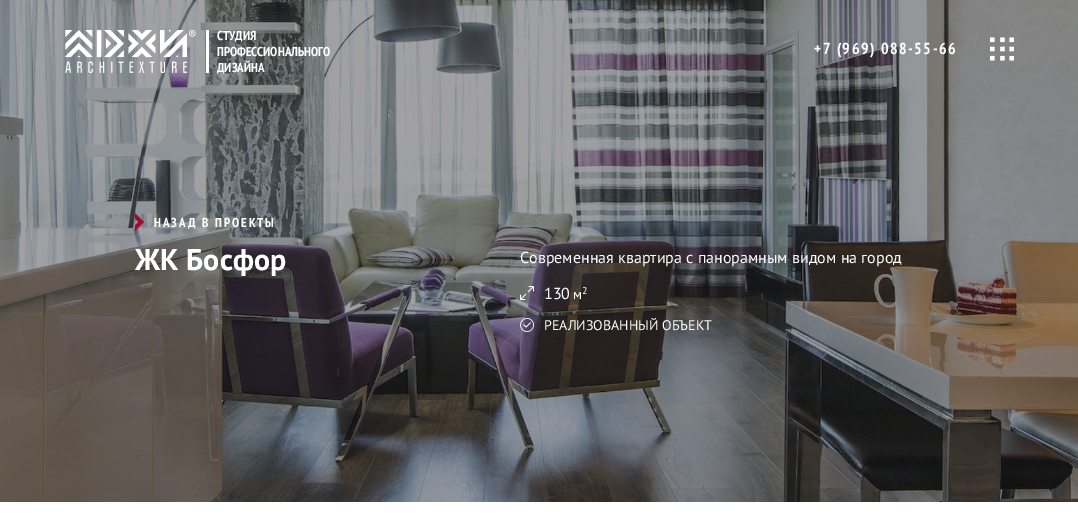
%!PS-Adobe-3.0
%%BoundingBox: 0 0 1078 531
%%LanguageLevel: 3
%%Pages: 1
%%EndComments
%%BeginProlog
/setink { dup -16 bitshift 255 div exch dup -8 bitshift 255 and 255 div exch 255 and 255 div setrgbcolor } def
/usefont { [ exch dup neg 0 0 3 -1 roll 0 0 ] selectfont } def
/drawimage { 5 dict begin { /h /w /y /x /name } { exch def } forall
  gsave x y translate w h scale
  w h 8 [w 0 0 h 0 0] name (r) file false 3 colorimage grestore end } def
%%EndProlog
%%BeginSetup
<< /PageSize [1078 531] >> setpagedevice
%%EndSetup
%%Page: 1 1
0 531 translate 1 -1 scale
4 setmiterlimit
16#FFFFFF setink
0 0 1078 531 rectfill
(img3.raw) 0 0 1078 502 drawimage
(img1.raw) 65 30 131 43 drawimage
206 30 3 43 rectfill
/PTSansNarrow-Bold 13 usefont
[
    [(СТУДИЯ) 217 40]
    [(ПРОФЕССИОНАЛЬНОГО) 217 56]
    [(ДИЗАЙНА) 217 72]
] { aload pop moveto show } forall
/PTSansNarrow-Bold 16 usefont
814 54 moveto 1.5 0 (+7 \(969\) 088-55-66) ashow
(img2.raw) 990 37 24 24 drawimage
16#A70830 setink
135 213 moveto 144 222 lineto 135 231 lineto 135 225.5 lineto 138.5 222 lineto 135 218.5 lineto closepath eofill
/PTSansNarrow-Bold 13 usefont
16#FFFFFF setink
154 227 moveto 2 0 (НАЗАД В ПРОЕКТЫ) ashow
/PTSans-Bold 30 usefont
135 270 moveto (ЖК Босфор) show
/PTSans-Regular 16 usefont
520 263 moveto (Современная квартира с панорамным видом на город) show
(img4.raw) 520 286 14 14 drawimage
544 299 moveto (130) show
/PTSans-Regular 14 usefont
573 299 moveto (м) show
/PTSans-Regular 10 usefont
582 294 moveto (2) show
(img5.raw) 520 318 14 14 drawimage
/PTSans-Regular 14 usefont
544 330 moveto (РЕАЛИЗОВАННЫЙ ОБЪЕКТ) show
showpage
%%EOF
